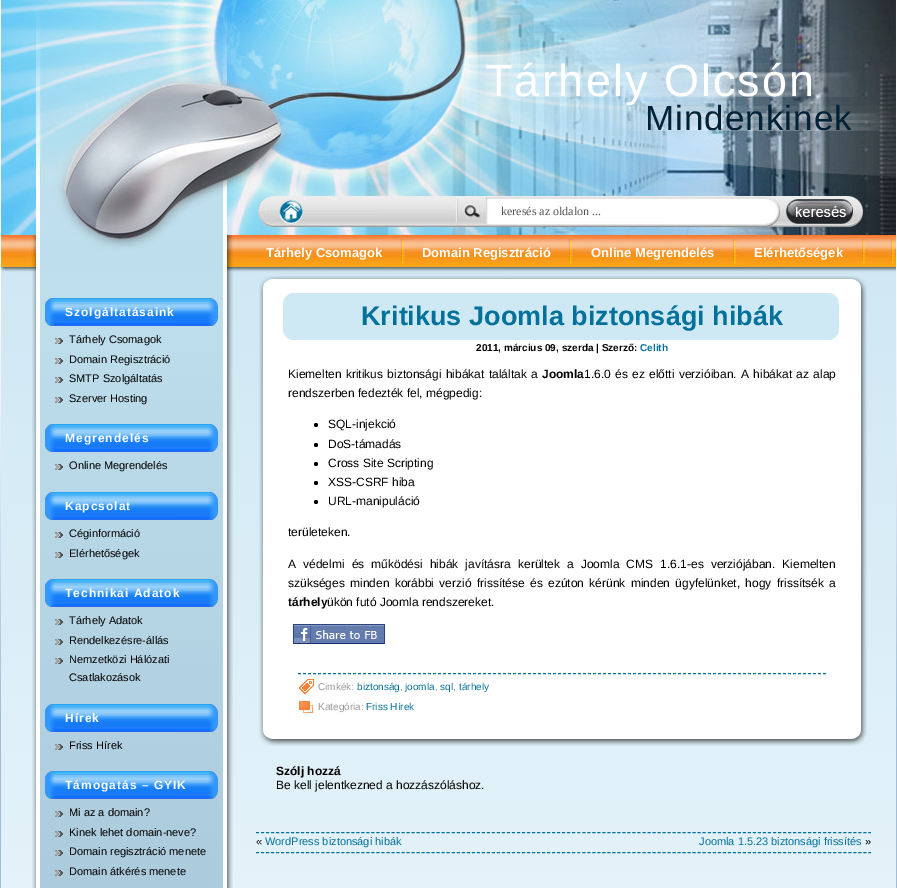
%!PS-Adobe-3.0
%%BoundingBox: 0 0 897 888
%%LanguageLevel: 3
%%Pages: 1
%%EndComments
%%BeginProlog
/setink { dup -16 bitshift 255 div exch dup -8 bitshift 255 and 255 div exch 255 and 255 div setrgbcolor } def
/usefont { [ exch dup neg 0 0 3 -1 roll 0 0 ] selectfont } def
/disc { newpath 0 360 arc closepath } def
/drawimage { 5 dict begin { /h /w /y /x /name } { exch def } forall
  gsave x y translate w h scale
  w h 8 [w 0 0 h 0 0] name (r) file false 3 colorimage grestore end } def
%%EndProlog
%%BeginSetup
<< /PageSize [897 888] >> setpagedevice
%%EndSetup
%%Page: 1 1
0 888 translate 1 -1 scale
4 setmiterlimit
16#A0BED8 setink
0 0 897 888 rectfill
(img1.raw) 0 0 897 707 drawimage
(img2.raw) 1 0 895 235 drawimage
/LiberationSans-Regular 45 usefont
16#FFFFFF setink
485 96 moveto 2 0 (Tárhely Olcsón) ashow
/LiberationSans-Regular 35 usefont
16#002238 setink
645 130 moveto 1 0 (Mindenkinek) ashow
(img3.raw) 278 198 26 27 drawimage
/LiberationSerif-Regular 12 usefont
16#555555 setink
501 215 moveto (keresés az oldalon ...) show
(img4.raw) 786 199 67 25 drawimage
(img5.raw) 1 235 888 38 drawimage
/LiberationSans-Bold 13 usefont
16#FFFFFF setink
266 257 moveto (Tárhely Csomagok) show
(img6.raw) 399 235 7 32 drawimage
422 257 moveto (Domain Regisztráció) show
(img6.raw) 567 235 7 32 drawimage
591 257 moveto (Online Megrendelés) show
(img6.raw) 731 235 7 32 drawimage
754 257 moveto (Elérhetőségek) show
(img6.raw) 860 235 7 32 drawimage
(img7.raw) 889 235 7 38 drawimage
(img8.raw) 1 273 895 615 drawimage
(img9.raw) 32 273 201 615 drawimage
(img10.raw) 40 273 183 615 drawimage
(img11.raw) 259 276 608 17 drawimage
(img12.raw) 259 293 608 436 drawimage
263 293 598 436 rectfill
(img13.raw) 283 293 556 47 drawimage
/LiberationSans-Bold 27 usefont
16#04719B setink
361 325 moveto (Kritikus Joomla biztonsági hibák) show
/LiberationSans-Bold 10 usefont
16#000000 setink
476 351 moveto (2011, március 09, szerda | Szerző:) show
16#04719B setink
640 351 moveto (Celith) show
/LiberationSans-Regular 12 usefont
16#000000 setink
288 378 moveto 1 0 32 (Kiemelten kritikus biztonsági hibákat találtak a) widthshow
/LiberationSans-Bold 12 usefont
542 378 moveto (Joomla) show
/LiberationSans-Regular 12 usefont
584 378 moveto 1 0 32 (1.6.0 és ez előtti verzióiban. A hibákat az alap) widthshow
288 397 moveto (rendszerben fedezték fel, mégpedig:) show
316 425 2 disc fill
328 428 moveto (SQL-injekció) show
316 445 2 disc fill
328 448 moveto (DoS-támadás) show
316 464 2 disc fill
328 467 moveto (Cross Site Scripting) show
316 483 2 disc fill
328 486 moveto (XSS-CSRF hiba) show
316 502 2 disc fill
328 505 moveto (URL-manipuláció) show
288 536 moveto (területeken.) show
288 568 moveto 3.75 0 32 (A védelmi és működési hibák javításra kerültek a Joomla CMS 1.6.1-es verziójában. Kiemelten) widthshow
288 587 moveto 2 0 32 (szükséges minden korábbi verzió frissítése és ezúton kérünk minden ügyfelünket, hogy frissítsék a) widthshow
/LiberationSans-Bold 12 usefont
288 606 moveto (tárhely) show
/LiberationSans-Regular 12 usefont
327 606 moveto (ükön futó Joomla rendszereket.) show
(img14.raw) 293 624 92 20 drawimage
16#00719C setink
[3 2] 0 setdash
298 673.5 moveto 826 673.5 lineto stroke
(img15.raw) 299 679 15 16 drawimage
/LiberationSans-Regular 10 usefont
16#999999 setink
318 690 moveto (Cimkék:) show
16#04719B setink
357 690 moveto (biztonság) show
16#999999 setink
400 690 moveto (,) show
16#04719B setink
405 690 moveto (joomla) show
16#999999 setink
435 690 moveto (,) show
16#04719B setink
440 690 moveto (sql) show
16#999999 setink
453 690 moveto (,) show
16#04719B setink
459 690 moveto (tárhely) show
(img16.raw) 299 701 14 12 drawimage
16#999999 setink
318 710 moveto (Kategória:) show
16#04719B setink
366 710 moveto (Friss Hírek) show
(img17.raw) 259 729 608 17 drawimage
/LiberationSans-Bold 12 usefont
16#000000 setink
276 775 moveto (Szólj hozzá) show
/LiberationSans-Regular 12 usefont
276 789 moveto (Be kell jelentkezned a hozzászóláshoz.) show
16#00719C setink
[3 2.02] 0 setdash
256 832.5 moveto 871 832.5 lineto stroke
256 852.5 moveto 871 852.5 lineto stroke
/LiberationSans-Regular 11 usefont
16#000000 setink
256 845 moveto («) show
16#04719B setink
265 845 moveto (WordPress biztonsági hibák) show
699 845 moveto (Joomla 1.5.23 biztonsági frissítés) show
16#000000 setink
865 845 moveto (») show
(img18.raw) 45 298 173 28 drawimage
/LiberationSans-Bold 12 usefont
16#FFFFFF setink
65 316 moveto 1 0 (Szolgáltatásaink) ashow
(img19.raw) 55 338 8 6 drawimage
/LiberationSans-Regular 11 usefont
16#000000 setink
69 343 moveto (Tárhely Csomagok) show
(img20.raw) 55 358 8 6 drawimage
69 363 moveto (Domain Regisztráció) show
(img21.raw) 55 377 8 6 drawimage
69 382 moveto (SMTP Szolgáltatás) show
(img22.raw) 55 397 8 6 drawimage
69 402 moveto (Szerver Hosting) show
(img23.raw) 45 424 173 28 drawimage
/LiberationSans-Bold 12 usefont
16#FFFFFF setink
65 442 moveto 1 0 (Megrendelés) ashow
(img24.raw) 55 464 8 6 drawimage
/LiberationSans-Regular 11 usefont
16#000000 setink
69 469 moveto (Online Megrendelés) show
(img25.raw) 45 492 173 28 drawimage
/LiberationSans-Bold 12 usefont
16#FFFFFF setink
65 510 moveto 1 0 (Kapcsolat) ashow
(img26.raw) 55 532 8 6 drawimage
/LiberationSans-Regular 11 usefont
16#000000 setink
69 537 moveto (Céginformáció) show
(img27.raw) 55 552 8 6 drawimage
69 557 moveto (Elérhetőségek) show
(img28.raw) 45 579 173 28 drawimage
/LiberationSans-Bold 12 usefont
16#FFFFFF setink
65 597 moveto 1 0 (Technikai Adatok) ashow
(img29.raw) 55 619 8 6 drawimage
/LiberationSans-Regular 11 usefont
16#000000 setink
69 624 moveto (Tárhely Adatok) show
(img30.raw) 55 639 8 6 drawimage
69 644 moveto (Rendelkezésre-állás) show
(img31.raw) 55 658 8 6 drawimage
69 663 moveto (Nemzetközi Hálózati) show
69 681 moveto (Csatlakozások) show
(img32.raw) 45 704 173 28 drawimage
/LiberationSans-Bold 12 usefont
16#FFFFFF setink
65 722 moveto 1 0 (Hírek) ashow
(img33.raw) 55 744 8 6 drawimage
/LiberationSans-Regular 11 usefont
16#000000 setink
69 749 moveto (Friss Hírek) show
(img34.raw) 45 771 173 28 drawimage
/LiberationSans-Bold 12 usefont
16#FFFFFF setink
65 789 moveto 1 0 (Támogatás – GYIK) ashow
(img35.raw) 55 811 8 6 drawimage
/LiberationSans-Regular 11 usefont
16#000000 setink
69 816 moveto (Mi az a domain?) show
(img36.raw) 55 831 8 6 drawimage
69 836 moveto (Kinek lehet domain-neve?) show
(img37.raw) 55 850 8 6 drawimage
69 855 moveto (Domain regisztráció menete) show
(img38.raw) 55 870 8 6 drawimage
69 875 moveto (Domain átkérés menete) show
showpage
%%EOF
